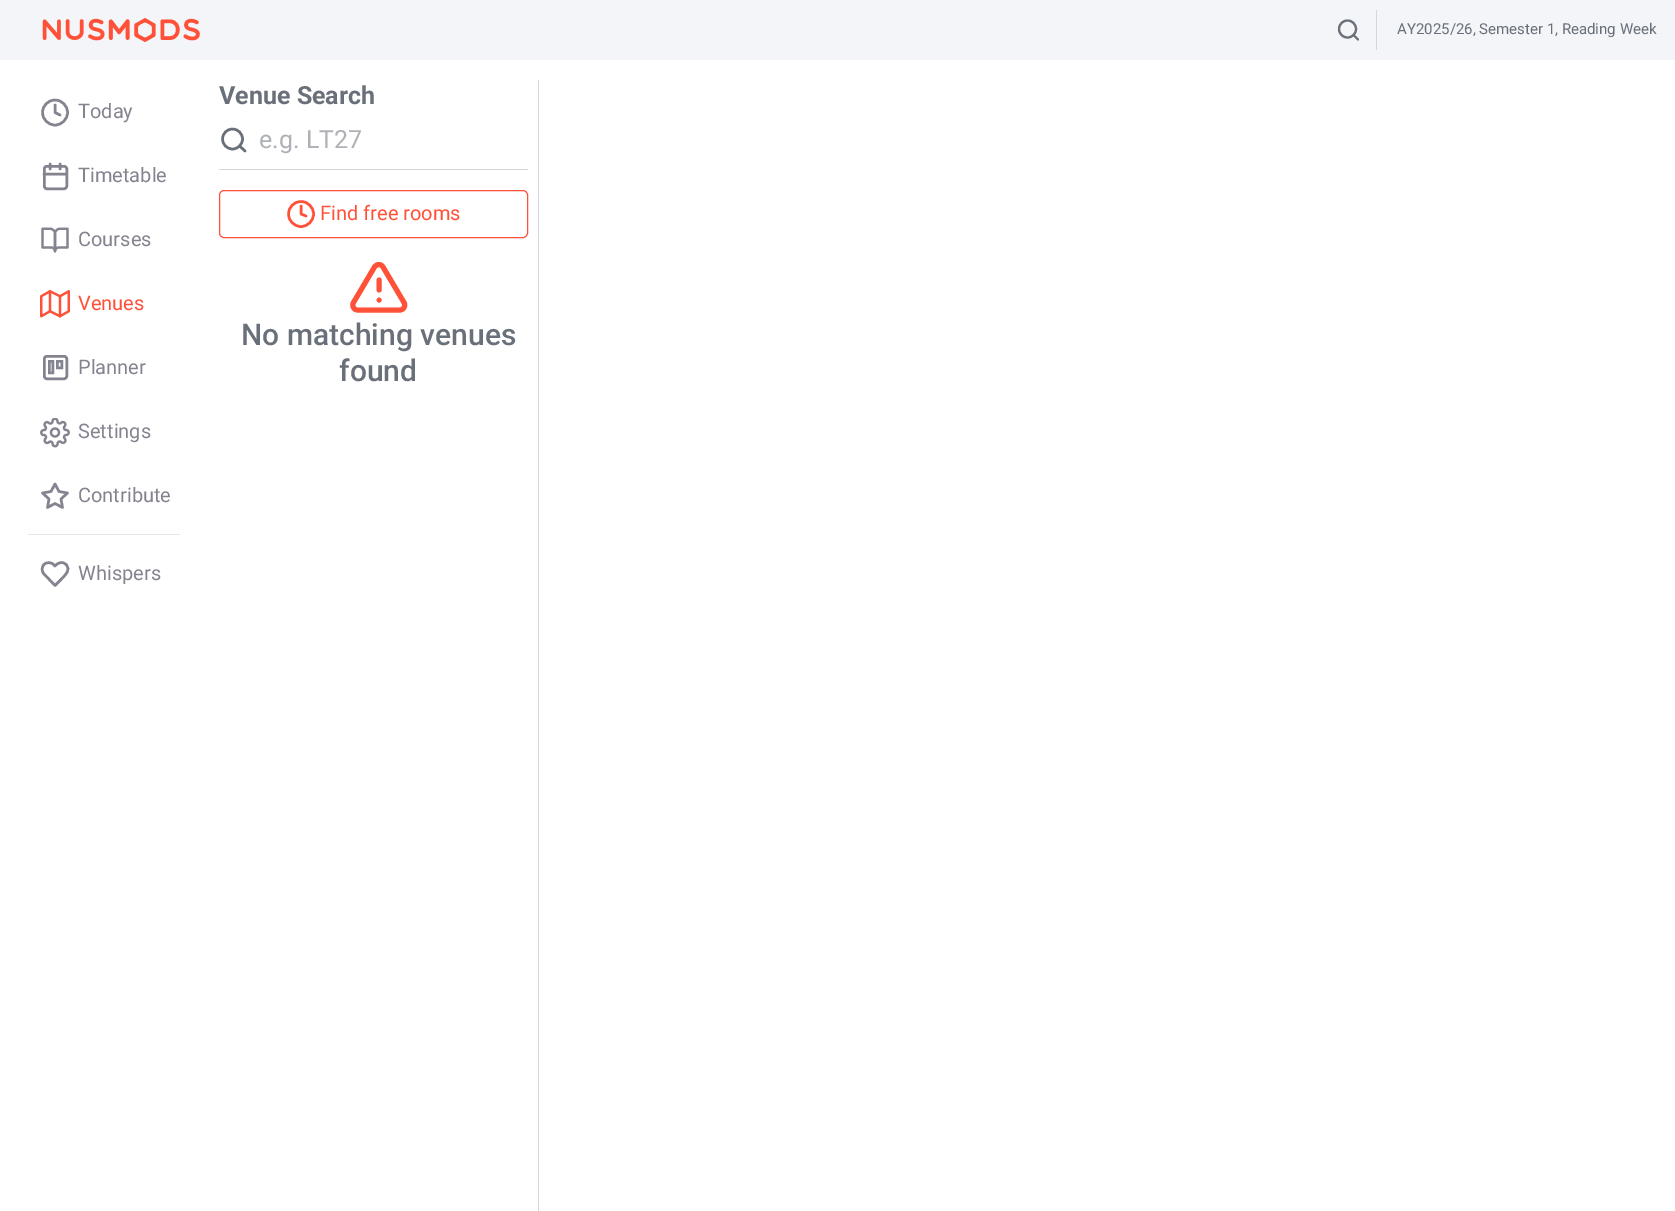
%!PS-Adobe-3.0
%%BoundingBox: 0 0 1675 1211
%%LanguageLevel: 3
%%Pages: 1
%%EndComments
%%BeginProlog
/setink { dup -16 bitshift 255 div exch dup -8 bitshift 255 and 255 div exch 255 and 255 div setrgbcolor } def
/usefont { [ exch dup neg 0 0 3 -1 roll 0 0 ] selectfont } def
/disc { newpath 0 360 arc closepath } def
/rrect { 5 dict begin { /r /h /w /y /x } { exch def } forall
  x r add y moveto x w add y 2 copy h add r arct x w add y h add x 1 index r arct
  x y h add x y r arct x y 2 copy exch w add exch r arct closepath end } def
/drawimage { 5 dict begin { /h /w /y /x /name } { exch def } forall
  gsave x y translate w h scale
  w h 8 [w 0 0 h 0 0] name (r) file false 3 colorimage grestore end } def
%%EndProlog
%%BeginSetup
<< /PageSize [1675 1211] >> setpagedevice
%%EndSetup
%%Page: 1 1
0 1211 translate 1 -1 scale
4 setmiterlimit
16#FFFFFF setink
0 0 1675 1211 rectfill
16#F3F5F8 setink
0 0 1675 60 rectfill
(img1.raw) 42 18 158 24 drawimage
16#D3D6DB setink
1376 10 1 40 rectfill
16#69707A setink
2.1 setlinewidth
1347.5 29 8.5 disc stroke
1 setlinecap
1 setlinejoin
1358 39.5 moveto 1353.5 35 lineto stroke
/Roboto-Regular 15 usefont
1397 34 moveto (AY2025/26, Semester 1, Reading Week) show
16#848490 setink
2.5 setlinewidth
0 setlinecap
0 setlinejoin
55 112.5 12.5 disc stroke
1 setlinecap
1 setlinejoin
55 105 moveto 55 112.5 lineto 60 115 lineto stroke
/Roboto-Regular 20 usefont
78 118 moveto (Today) show
0 setlinecap
0 setlinejoin
44.25 166.25 22.5 22.5 2.75 rrect stroke
1 setlinecap
1 setlinejoin
60 164 moveto 60 169 lineto 50 164 moveto 50 169 lineto 44 174 moveto 66 174 lineto stroke
78 182 moveto (Timetable) show
(img2.raw) 41 227 28 26 drawimage
78 246 moveto (Courses) show
(img3.raw) 40 290 30 28 drawimage
16#FF5138 setink
78 310 moveto (Venues) show
16#848490 setink
0 setlinecap
0 setlinejoin
44.25 356.25 22.5 22.5 2.75 rrect stroke
49.25 361.25 3.5 11.5 rectstroke
57.25 361.25 4.5 6.5 rectstroke
78 374 moveto (Planner) show
(img4.raw) 40 418 30 30 drawimage
78 438 moveto (Settings) show
1 setlinecap
1 setlinejoin
55 484 moveto 59 491.5 lineto 67.5 493 lineto 61 499 lineto 62.5 507.5 lineto 55 503.5 lineto 47.5 507.5 lineto 49 499 lineto 42.5 493 lineto 51 491.5 lineto closepath stroke
78 502 moveto (Contribute) show
16#E5E6E9 setink
28 534 152 1 rectfill
16#848490 setink
66 564.5 moveto 62.5 561 58 562.5 55 566 curveto 53.5 564.5 lineto 51 562 46.5 562 44 564.5 curveto 41.5 567 41.5 571.5 44 574 curveto 55 585.5 lineto 61.5 579 lineto 65 575 71.5 570 66 564.5 curveto closepath stroke
78 580 moveto (Whispers) show
16#D3D6DB setink
538 80 1 1131 rectfill
/Roboto-Bold 25 usefont
16#69707A setink
219 104 moveto (Venue Search) show
0 setlinecap
0 setlinejoin
232.5 139 10 disc stroke
1 setlinecap
1 setlinejoin
245 151 moveto 239.5 146 lineto stroke
16#D3D6DB setink
219 169 309 1 rectfill
/Roboto-Regular 25 usefont
16#AEB1B5 setink
259 148 moveto (e.g. LT27) show
16#FF5138 setink
1 setlinewidth
0 setlinecap
0 setlinejoin
219.5 190.5 308 47 4.5 rrect stroke
2.5 setlinewidth
301 214 12.5 disc stroke
1 setlinecap
1 setlinejoin
301 206 moveto 301 214 lineto 306 216 lineto stroke
/Roboto-Regular 20 usefont
320 220 moveto (Find free rooms) show
5 setlinewidth
374.5 267 moveto 353.5 302.5 lineto 352.5 304 352.5 306 353.5 307.5 curveto 354 309 356 310 357.5 310 curveto 400 310 lineto 401.5 310 403.5 309 404 307.5 curveto 405 306 405 304 404 302.5 curveto 383 267 lineto 382 265.5 380.5 264.5 379 264.5 curveto 377 264.5 375.5 265.5 374.5 267 curveto closepath 379 280 moveto 379 290 lineto 379 300 moveto 379 300 lineto stroke
/Roboto-Medium 30 usefont
16#69707A setink
241 345 moveto (No matching venues) show
339 381 moveto (found) show
showpage
%%EOF
